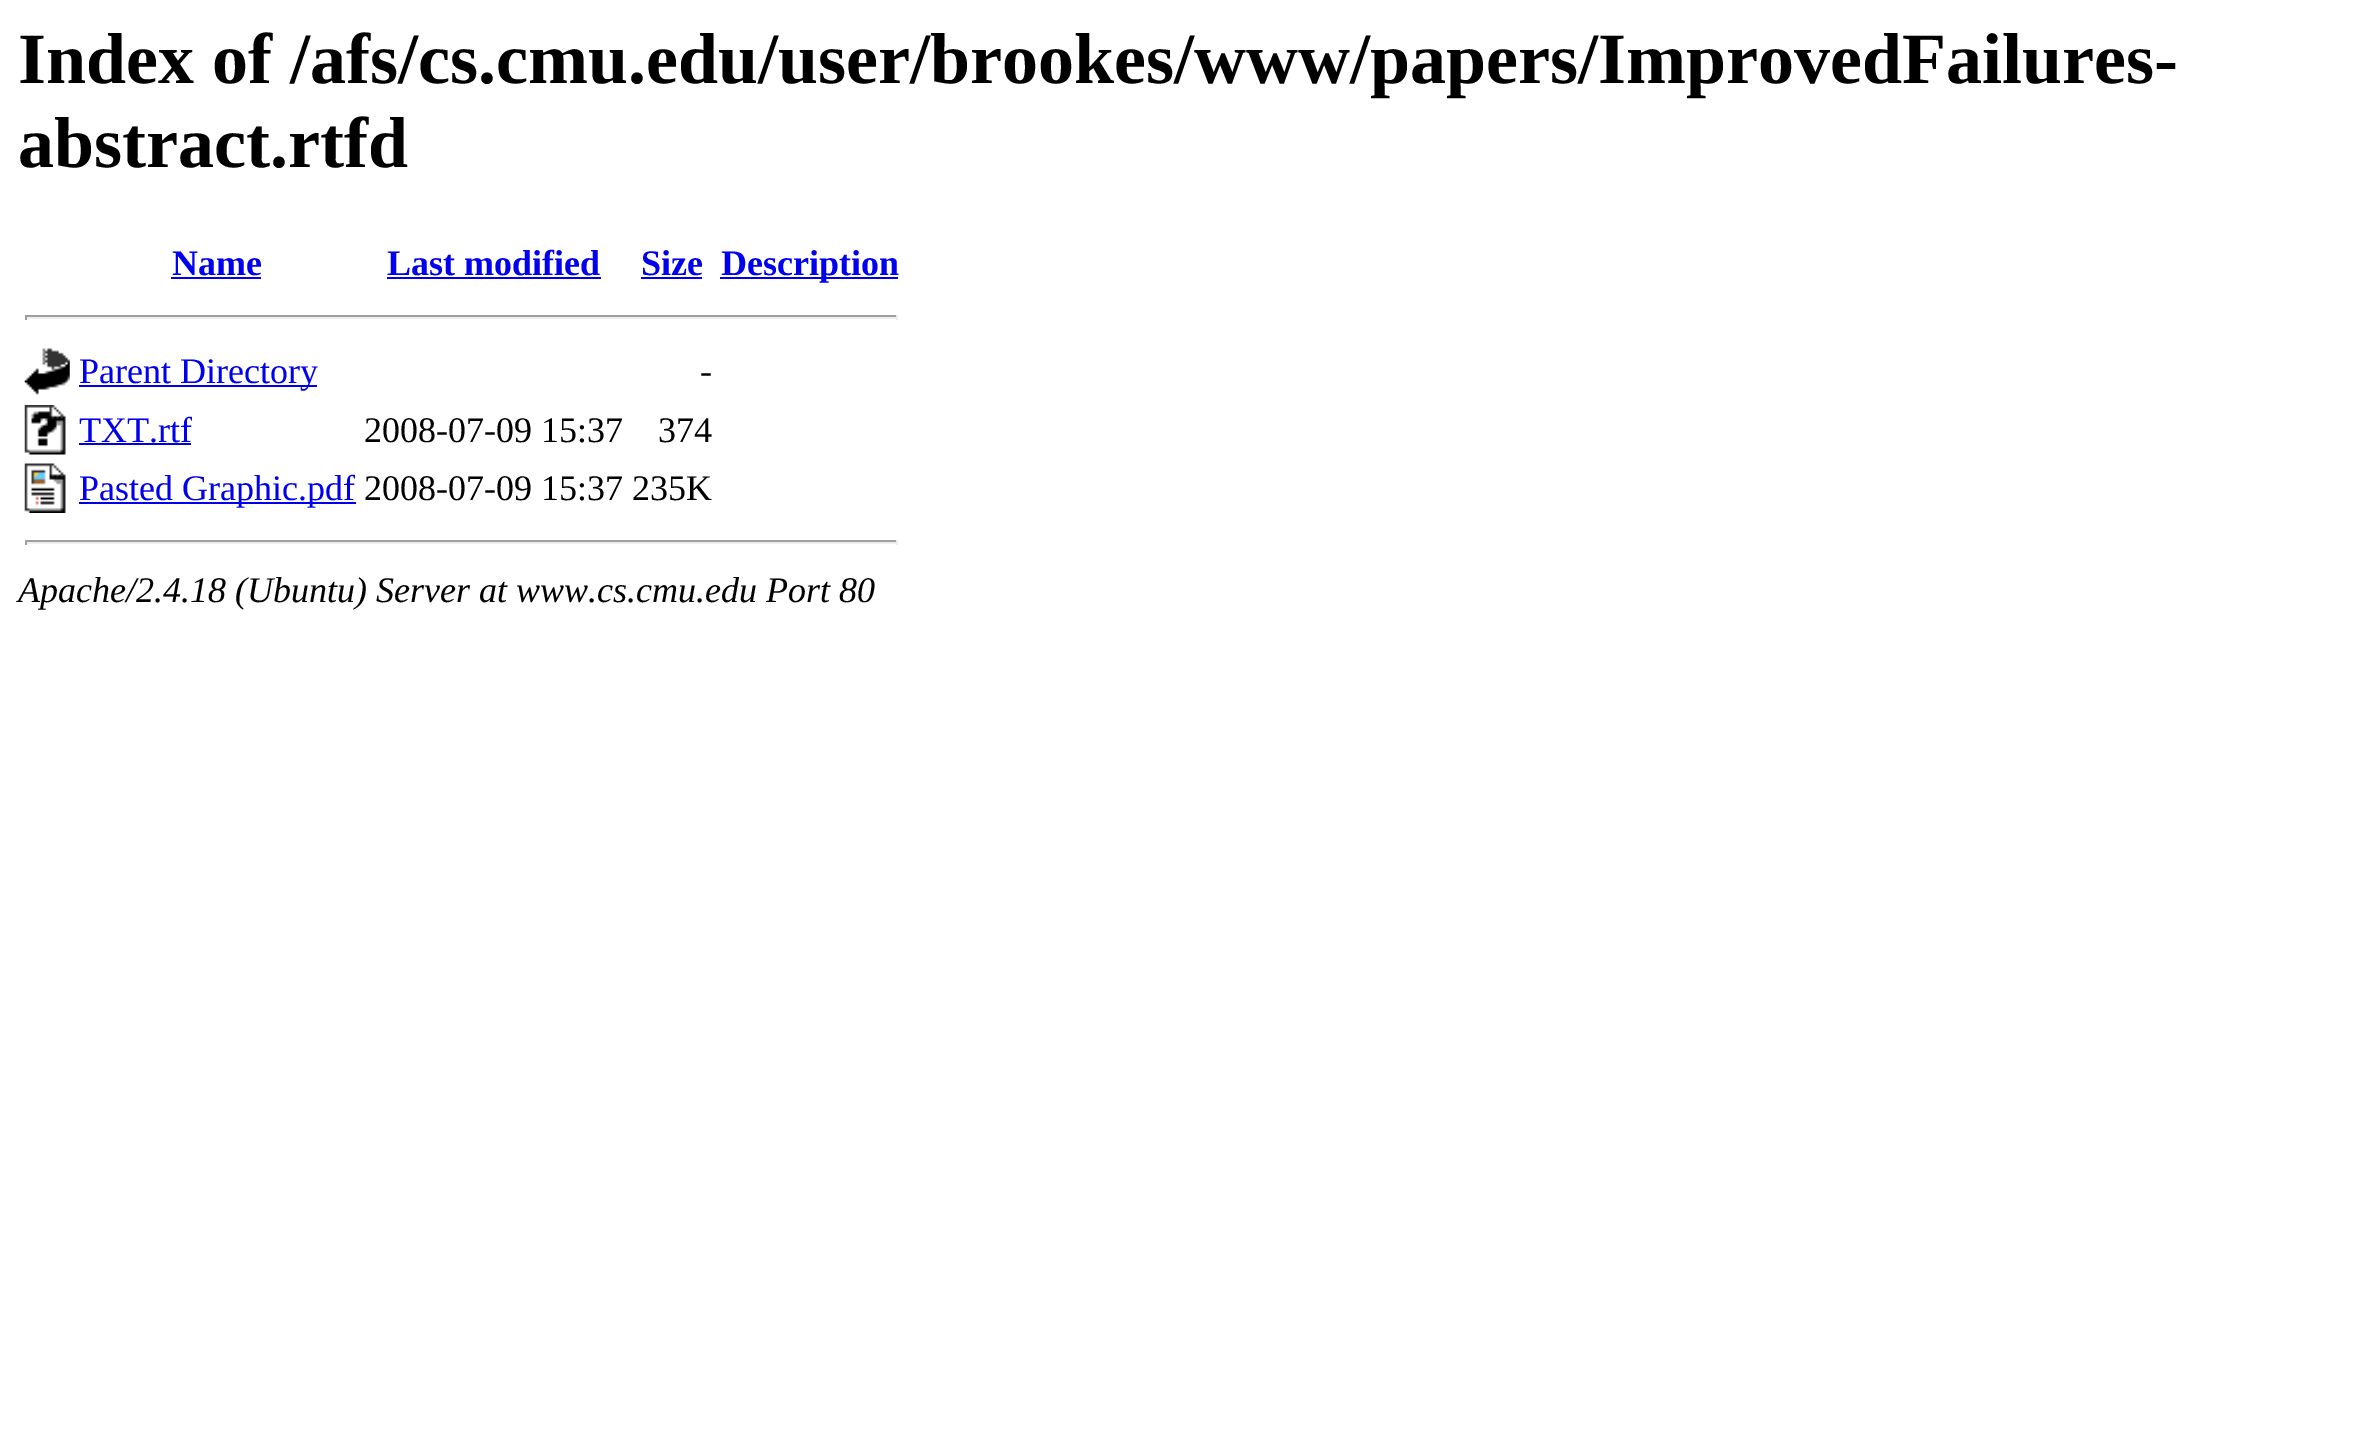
%!PS-Adobe-3.0
%%BoundingBox: 0 0 2374 1445
%%LanguageLevel: 3
%%Pages: 1
%%EndComments
%%BeginProlog
/setink { dup -16 bitshift 255 div exch dup -8 bitshift 255 and 255 div exch 255 and 255 div setrgbcolor } def
/usefont { [ exch dup neg 0 0 3 -1 roll 0 0 ] selectfont } def
/drawimage { 5 dict begin { /h /w /y /x /name } { exch def } forall
  gsave x y translate w h scale
  w h 8 [w 0 0 h 0 0] name (r) file false 3 colorimage grestore end } def
%%EndProlog
%%BeginSetup
<< /PageSize [2374 1445] >> setpagedevice
%%EndSetup
%%Page: 1 1
0 1445 translate 1 -1 scale
4 setmiterlimit
16#FFFFFF setink
0 0 2374 1445 rectfill
/LiberationSerif-Bold 72 usefont
16#000000 setink
18 83 moveto (Index of /afs/cs.cmu.edu/user/brookes/www/papers/ImprovedFailures-) show
18 167 moveto (abstract.rtfd) show
/LiberationSerif-Bold 36 usefont
16#0000EE setink
172 275 moveto (Name) show
171 277 90 2 rectfill
387 275 moveto (Last modified) show
387 277 214 2 rectfill
641 275 moveto (Size) show
641 277 61 2 rectfill
720 277 178 2 rectfill
721 275 moveto (Description) show
[
    [25 315 873 2 16#9F9F9F]
    [896 315 2 5 16#EEEEEE]
    [25 317 873 2 16#EEEEEE]
    [25 315 2 5 16#9F9F9F]
] { aload pop setink rectfill } forall
(img1.raw) 24 348 46 47 drawimage
16#0000EE setink
79 385 238 2 rectfill
/LiberationSerif-Regular 36 usefont
79 383 moveto (Parent Directory) show
16#000000 setink
700 383 moveto (-) show
(img2.raw) 24 405 42 50 drawimage
16#0000EE setink
79 442 moveto (TXT.rtf) show
79 443 112 2 rectfill
16#000000 setink
364 442 moveto (2008-07-09 15:37) show
658 442 moveto (374) show
(img3.raw) 24 463 42 50 drawimage
16#0000EE setink
79 502 277 2 rectfill
79 500 moveto (Pasted Graphic.pdf) show
16#000000 setink
364 500 moveto (2008-07-09 15:37 235K) show
[
    [25 540 873 2 16#9F9F9F]
    [896 540 2 5 16#EEEEEE]
    [25 542 873 2 16#EEEEEE]
    [25 540 2 5 16#9F9F9F]
] { aload pop setink rectfill } forall
/LiberationSerif-Italic 36 usefont
16#000000 setink
18 602 moveto (Apache/2.4.18 \(Ubuntu\) Server at www.cs.cmu.edu Port 80) show
showpage
%%EOF
